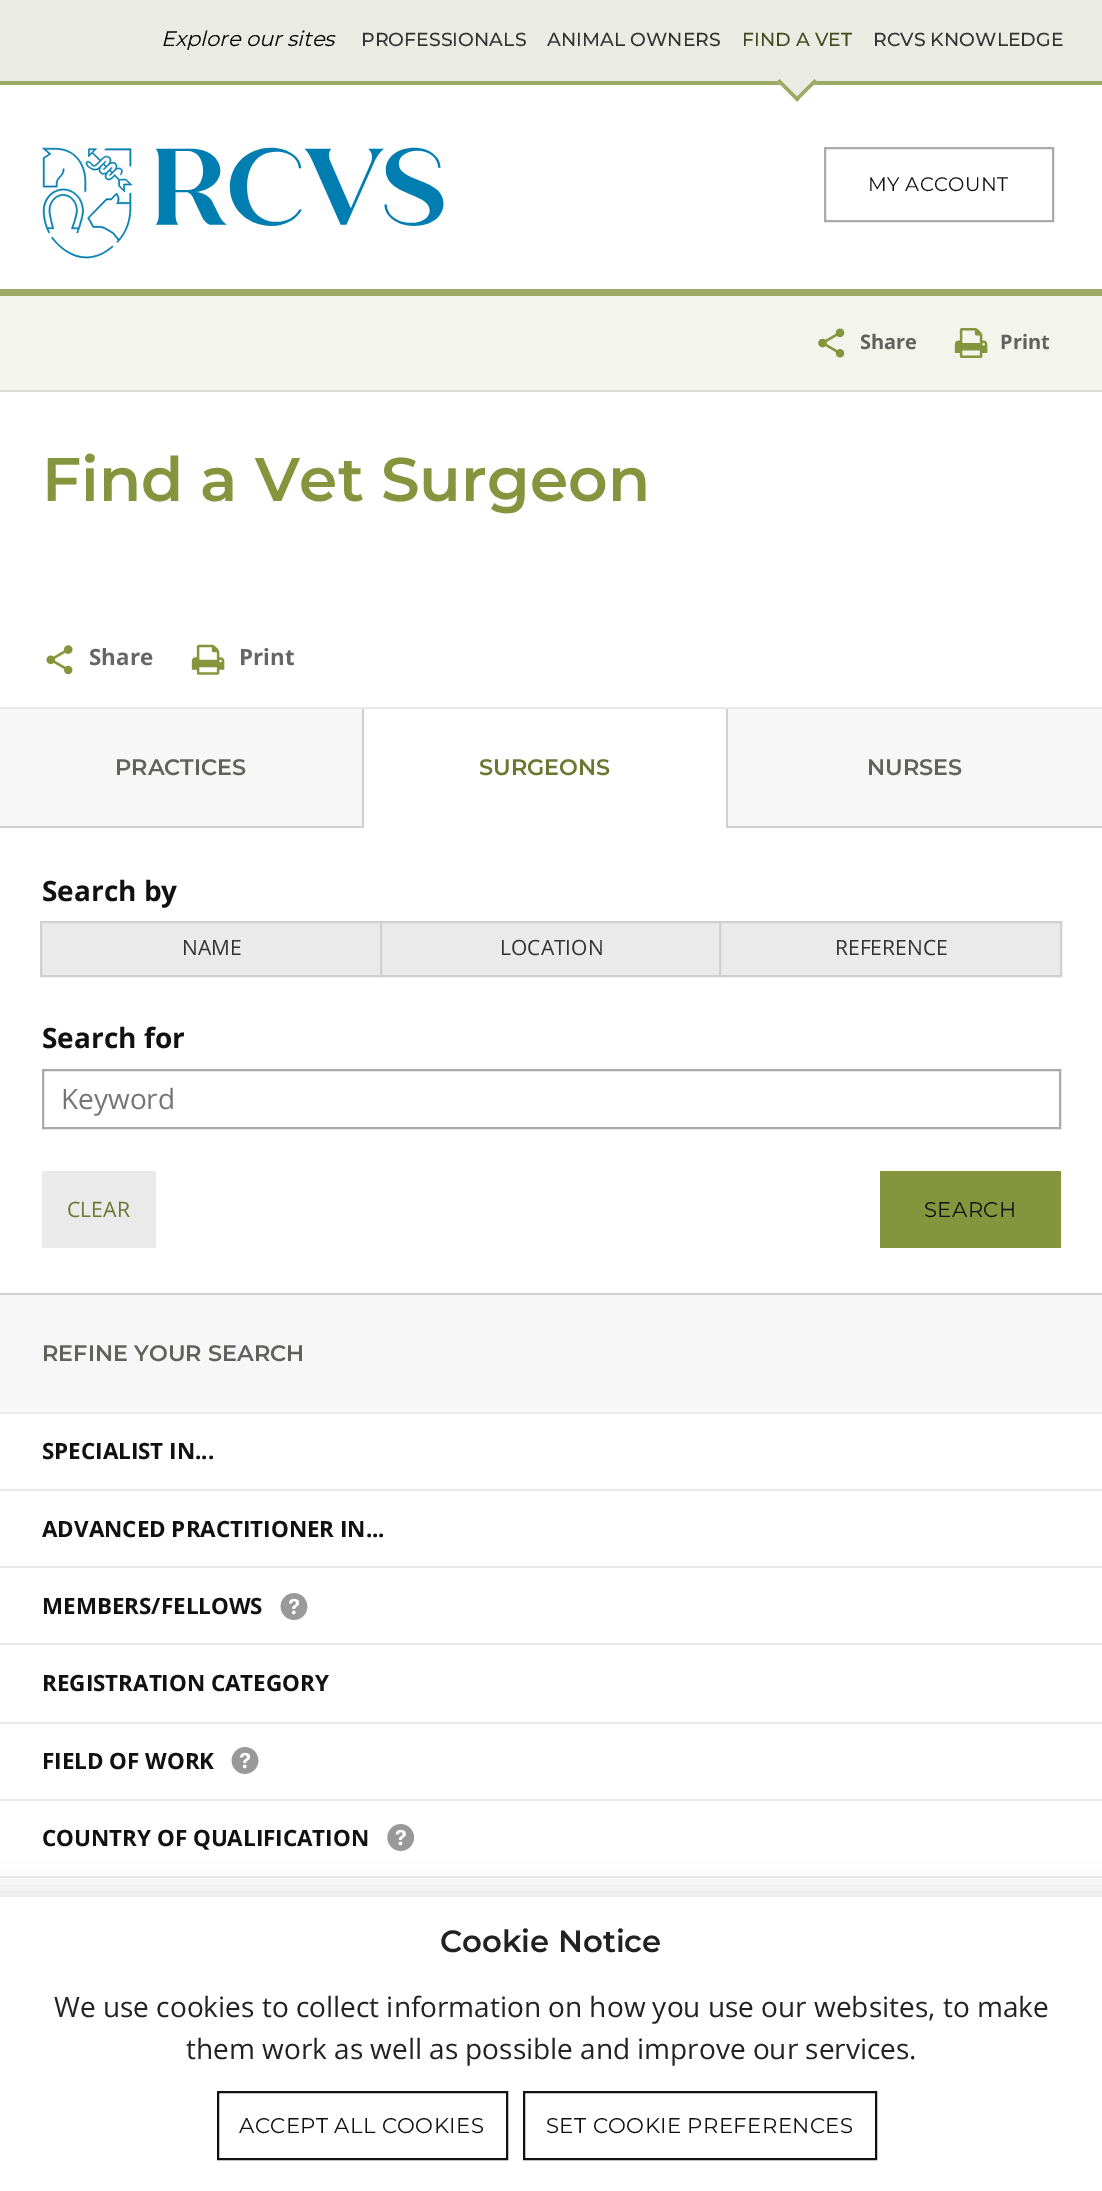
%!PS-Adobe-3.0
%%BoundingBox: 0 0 1102 2191
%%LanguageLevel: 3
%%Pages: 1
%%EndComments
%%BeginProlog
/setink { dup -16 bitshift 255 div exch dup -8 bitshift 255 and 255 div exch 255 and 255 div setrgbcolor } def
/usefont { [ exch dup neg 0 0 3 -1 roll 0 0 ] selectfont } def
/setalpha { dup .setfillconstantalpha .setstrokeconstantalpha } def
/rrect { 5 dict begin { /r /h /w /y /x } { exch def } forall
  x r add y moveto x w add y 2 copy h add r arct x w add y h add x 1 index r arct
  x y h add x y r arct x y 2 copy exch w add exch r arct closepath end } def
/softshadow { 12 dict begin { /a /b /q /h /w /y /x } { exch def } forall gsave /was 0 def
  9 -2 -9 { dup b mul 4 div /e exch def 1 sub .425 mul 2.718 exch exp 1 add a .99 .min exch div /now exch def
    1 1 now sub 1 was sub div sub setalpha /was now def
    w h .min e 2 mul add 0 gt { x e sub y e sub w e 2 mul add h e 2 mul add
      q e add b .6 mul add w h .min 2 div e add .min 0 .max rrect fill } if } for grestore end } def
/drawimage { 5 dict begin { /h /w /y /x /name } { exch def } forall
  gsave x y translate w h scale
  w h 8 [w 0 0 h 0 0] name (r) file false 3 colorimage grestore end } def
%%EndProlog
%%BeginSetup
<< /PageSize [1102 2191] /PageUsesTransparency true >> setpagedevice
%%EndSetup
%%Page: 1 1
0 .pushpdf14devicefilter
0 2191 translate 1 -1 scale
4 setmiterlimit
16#EAEBE3 setink
0 0 1102 2191 rectfill
/Montserrat-Italic 21 usefont
16#000000 setink
161 46 moveto (Explore our sites) show
/Montserrat-Medium 18.9 usefont
16#333333 setink
361 46 moveto (PROFESSIONALS) show
547 46 moveto (ANIMAL OWNERS) show
16#434B1F setink
742 46 moveto (FIND A VET) show
16#FFFFFF setink
0 85 1102 204 rectfill
16#9DAA65 setink
0 81 1102 4 rectfill
16#EAEBE3 setink
777 81.5 moveto 797 61.5 lineto 817 81.5 lineto 797 101.5 lineto closepath fill
16#9DAA65 setink
794.5 99 moveto 814.5 79 lineto 817 81.5 lineto 797 101.5 lineto closepath fill
777 81.5 moveto 779.5 79 lineto 799.5 99 lineto 797 101.5 lineto closepath fill
16#333333 setink
873 46 moveto (RCVS KNOWLEDGE) show
(img1.raw) 42 147 402 112 drawimage
16#AAAAAA setink
2 setlinewidth
825 148 228 73 rectstroke
/Montserrat-Regular 19.5 usefont
16#111111 setink
868 191 moveto 0.4 0 (MY ACCOUNT) ashow
[
    [0 289 1102 7 16#9DAA65]
    [0 296 1102 94 16#F3F4EC]
    [0 390 1102 2 16#DBDCD4]
] { aload pop setink rectfill } forall
(img2.raw) 818 328 27 30 drawimage
/OpenSans-Bold 20 usefont
16#61625E setink
860 349 moveto (Share) show
(img3.raw) 954 328 34 30 drawimage
1000 349 moveto (Print) show
16#FFFFFF setink
0 392 1102 315 rectfill
/Montserrat-SemiBold 61.5 usefont
16#85953E setink
42 501 moveto (Find a Vet Surgeon) show
(img4.raw) 46 645 27 30 drawimage
/OpenSans-Bold 22.4 usefont
16#666666 setink
89 665 moveto (Share) show
(img5.raw) 191 644 34 31 drawimage
239 665 moveto (Print) show
[
    [0 707 1102 2 16#EAEAEA]
    [364 709 362 119 16#FFFFFF]
    [362 709 2 119 16#D0D0D0]
    [0 709 362 117 16#F7F7F7]
    [0 826 362 2 16#D0D0D0]
] { aload pop setink rectfill } forall
/Montserrat-SemiBold 22.4 usefont
16#61625E setink
115 775 moveto (PRACTICES) show
16#D0D0D0 setink
726 709 2 119 rectfill
16#6A7732 setink
479 775 moveto (SURGEONS) show
16#F7F7F7 setink
728 709 374 117 rectfill
16#D0D0D0 setink
728 826 374 2 rectfill
16#61625E setink
867 775 moveto (NURSES) show
16#FFFFFF setink
0 828 1102 1069 rectfill
/OpenSans-Bold 28 usefont
16#111111 setink
42 901 moveto (Search by) show
16#EAEAEA setink
42 923 338 52 rectfill
16#D0D0D0 setink
41 922 341 54 rectstroke
/OpenSans-Regular 21 usefont
16#333333 setink
182 955 moveto (NAME) show
16#EAEAEA setink
382 923 337 52 rectfill
16#D0D0D0 setink
381 922 341 54 rectstroke
16#333333 setink
500 955 moveto (LOCATION) show
16#EAEAEA setink
721 923 339 52 rectfill
16#D0D0D0 setink
720 922 341 54 rectstroke
16#333333 setink
835 955 moveto (REFERENCE) show
/OpenSans-Bold 28 usefont
16#111111 setink
42 1048 moveto (Search for) show
16#AAAAAA setink
43 1070 1017 58 rectstroke
/OpenSans-Regular 28 usefont
16#757575 setink
61 1109 moveto (Keyword) show
16#EAEAEA setink
42 1171 114 77 rectfill
/OpenSans-Regular 21.25 usefont
16#6A7732 setink
67 1217 moveto (CLEAR) show
16#85953E setink
880 1171 181 77 rectfill
/Montserrat-Regular 21.25 usefont
16#111111 setink
924 1217 moveto 0.4 0 (SEARCH) ashow
16#F7F7F7 setink
0 1295 1102 117 rectfill
16#D0D0D0 setink
0 1293 1102 2 rectfill
/Montserrat-SemiBold 22.4 usefont
16#61625E setink
42 1361 moveto (REFINE YOUR SEARCH) show
16#EAEAEA setink
0 1412 1102 2 rectfill
/OpenSans-Bold 22.4 usefont
16#111111 setink
42 1459 moveto (SPECIALIST IN...) show
16#EAEAEA setink
0 1489 1102 2 rectfill
16#111111 setink
42 1537 moveto (ADVANCED PRACTITIONER IN...) show
16#EAEAEA setink
0 1566 1102 2 rectfill
16#111111 setink
42 1614 moveto (MEMBERS/FELLOWS) show
(img6.raw) 280 1593 28 27 drawimage
16#EAEAEA setink
0 1643 1102 2 rectfill
16#111111 setink
42 1691 moveto (REGISTRATION CATEGORY) show
16#EAEAEA setink
0 1722 1102 2 rectfill
16#111111 setink
42 1769 moveto (FIELD OF WORK) show
(img7.raw) 231 1747 28 27 drawimage
16#EAEAEA setink
0 1799 1102 2 rectfill
0 1876 1102 2 rectfill
16#111111 setink
42 1846 moveto (COUNTRY OF QUALIFICATION) show
(img8.raw) 387 1824 28 27 drawimage
16#000000 setink
-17 1888 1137 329 0 13 0.1 softshadow
16#FFFFFF setink
0 1897 1102 294 rectfill
/Montserrat-SemiBold 30.75 usefont
16#222222 setink
440 1952 moveto (Cookie Notice) show
/OpenSans-Regular 28 usefont
54 2017 moveto (We use cookies to collect information on how you use our websites, to make) show
186 2059 moveto (them work as well as possible and improve our services.) show
16#111111 setink
218 2092 289 67 rectstroke
/Montserrat-Regular 21.25 usefont
239 2133 moveto 0.4 0 (ACCEPT ALL COOKIES) ashow
524 2092 352 67 rectstroke
546 2133 moveto 0.4 0 (SET COOKIE PREFERENCES) ashow
.poppdf14devicefilter showpage
%%EOF
